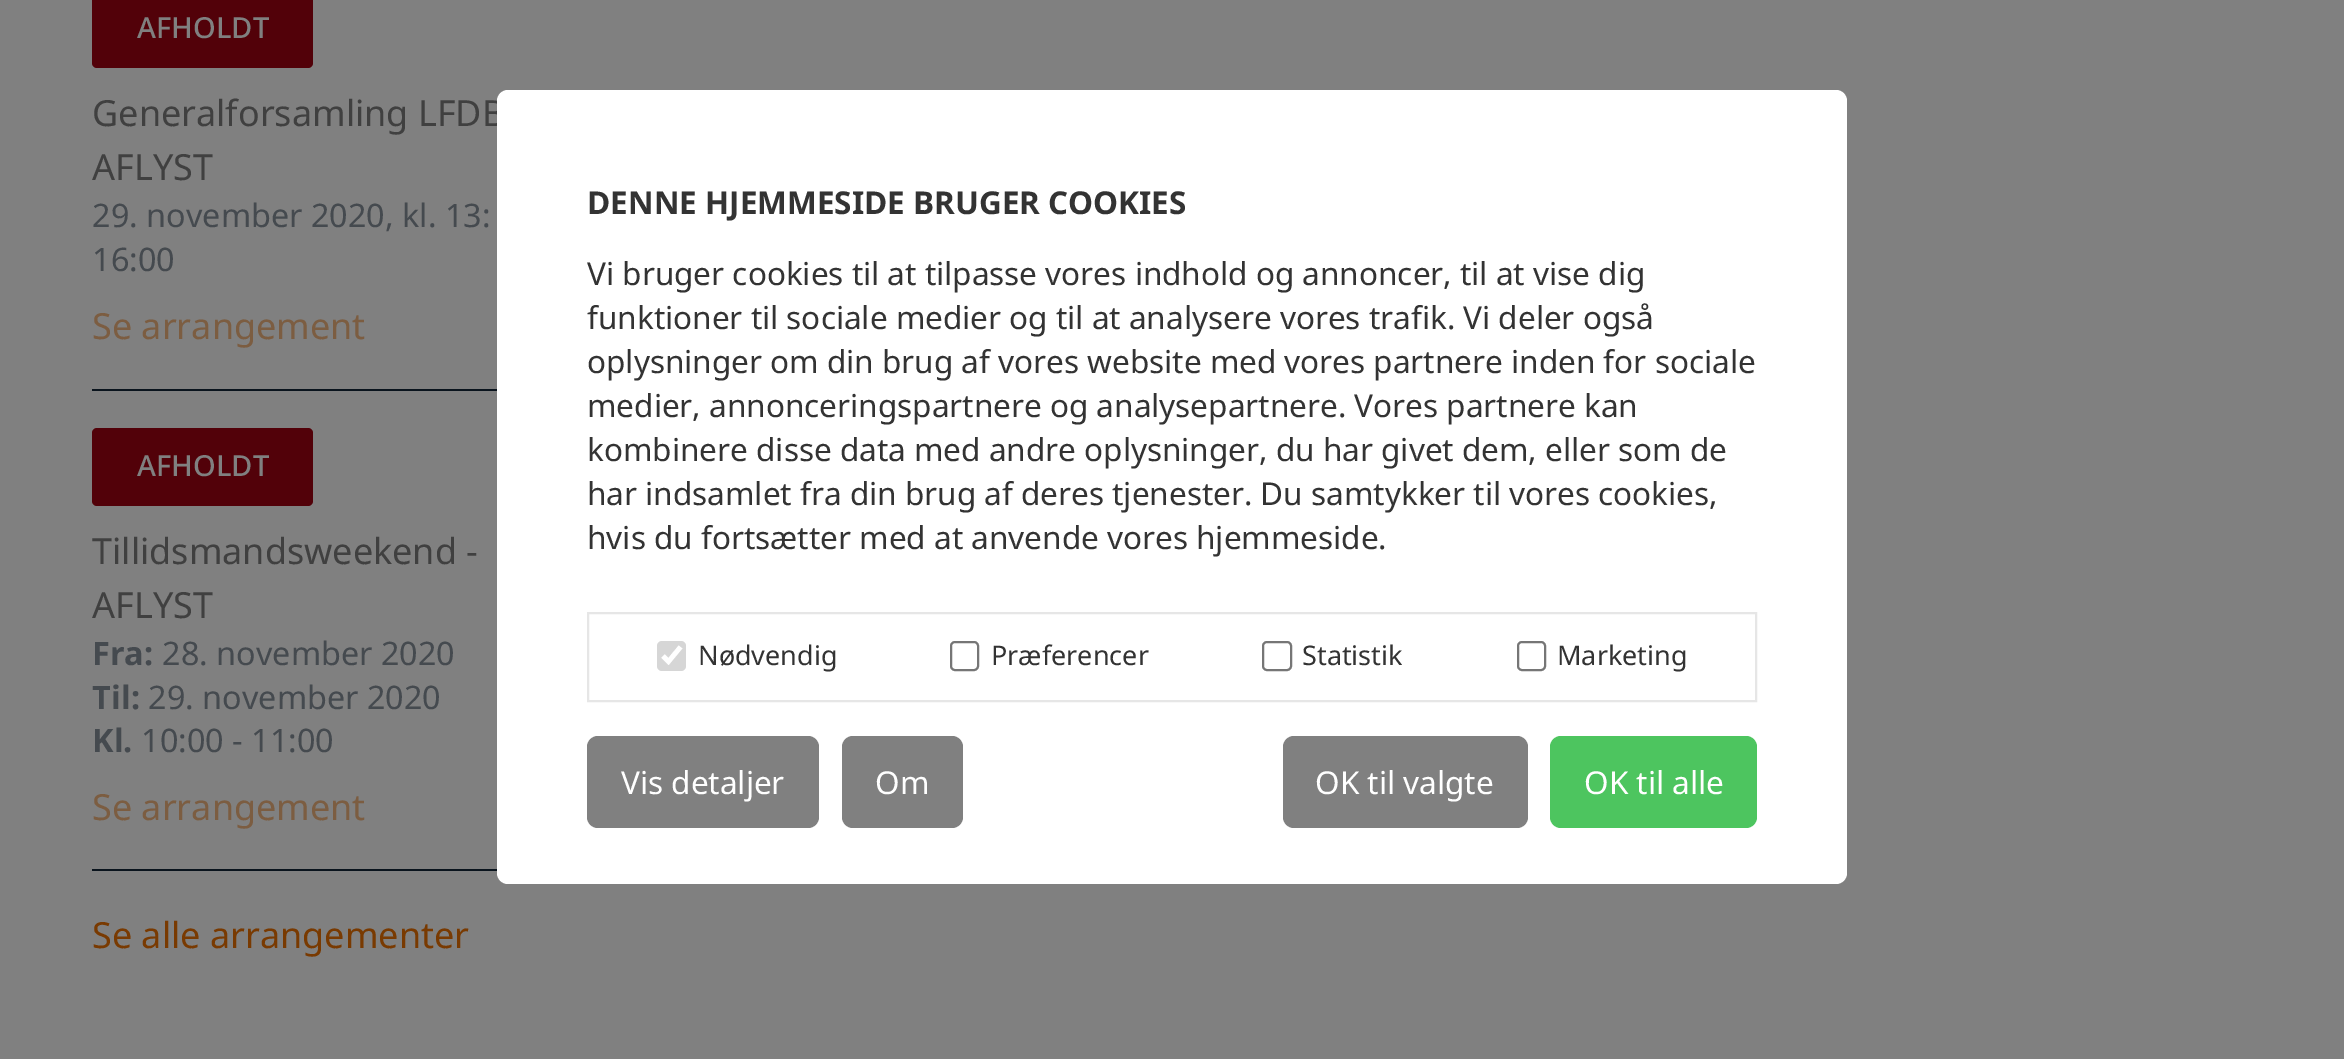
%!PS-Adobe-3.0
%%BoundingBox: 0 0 2344 1059
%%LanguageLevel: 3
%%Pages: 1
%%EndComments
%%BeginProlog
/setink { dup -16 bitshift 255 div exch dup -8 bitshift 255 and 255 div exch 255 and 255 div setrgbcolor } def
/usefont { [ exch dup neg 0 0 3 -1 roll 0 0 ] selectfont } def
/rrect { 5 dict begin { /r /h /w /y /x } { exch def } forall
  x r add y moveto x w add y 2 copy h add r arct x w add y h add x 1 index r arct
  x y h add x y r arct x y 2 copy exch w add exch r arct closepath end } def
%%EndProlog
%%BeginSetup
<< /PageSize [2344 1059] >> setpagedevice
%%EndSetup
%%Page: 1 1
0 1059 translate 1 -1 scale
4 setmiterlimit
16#808080 setink
0 0 2344 1059 rectfill
16#0A141D setink
92 389 405 2 rectfill
16#520109 setink
92 -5 221 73 5 rrect fill
/NotoSans-Medium 29 usefont
16#808080 setink
137 38 moveto (AFHOLDT) show
/NotoSans-Regular 36 usefont
16#404040 setink
92 126 moveto (Generalforsamling LFDB) show
92 180 moveto (AFLYST) show
/NotoSans-Regular 32.4 usefont
16#454A4F setink
92 227 moveto (29. november 2020, kl. 13:) show
92 271 moveto (16:00) show
/NotoSans-Regular 36 usefont
16#7C5D41 setink
92 339 moveto (Se arrangement) show
16#0A141D setink
92 869 405 2 rectfill
16#520109 setink
92 428 221 78 5 rrect fill
/NotoSans-Medium 29 usefont
16#808080 setink
137 476 moveto (AFHOLDT) show
/NotoSans-Regular 36 usefont
16#404040 setink
92 564 moveto (Tillidsmandsweekend -) show
92 618 moveto (AFLYST) show
/NotoSans-Bold 32.4 usefont
16#454A4F setink
92 665 moveto (Fra:) show
/NotoSans-Regular 32.4 usefont
162 665 moveto (28. november 2020) show
/NotoSans-Bold 32.4 usefont
92 709 moveto (Til:) show
/NotoSans-Regular 32.4 usefont
148 709 moveto (29. november 2020) show
/NotoSans-Bold 32.4 usefont
92 752 moveto (Kl.) show
/NotoSans-Regular 32.4 usefont
141 752 moveto (10:00 - 11:00) show
/NotoSans-Regular 36 usefont
16#7C5D41 setink
92 820 moveto (Se arrangement) show
16#793A01 setink
92 948 moveto (Se alle arrangementer) show
16#FFFFFF setink
497 90 1350 794 11 rrect fill
/NotoSans-Bold 31.5 usefont
16#333333 setink
587 214 moveto (DENNE HJEMMESIDE BRUGER COOKIES) show
/NotoSans-Regular 31.5 usefont
[
    [(Vi bruger cookies til at tilpasse vores indhold og annoncer, til at vise dig) 587 285]
    [(funktioner til sociale medier og til at analysere vores trafik. Vi deler også) 587 329]
    [(oplysninger om din brug af vores website med vores partnere inden for sociale) 587 373]
    [(medier, annonceringspartnere og analysepartnere. Vores partnere kan) 587 417]
    [(kombinere disse data med andre oplysninger, du har givet dem, eller som de) 587 461]
    [(har indsamlet fra din brug af deres tjenester. Du samtykker til vores cookies,) 587 505]
    [(hvis du fortsætter med at anvende vores hjemmeside.) 587 549]
] { aload pop moveto show } forall
16#E6E6E6 setink
2 setlinewidth
588 613 1168 88 rectstroke
16#D6D6D6 setink
657 641 29 30 5 rrect fill
16#FFFFFF setink
4.7 setlinewidth
663 656 moveto 668.5 661.5 lineto 680.5 647 lineto stroke
/NotoSans-Regular 27 usefont
16#333333 setink
698 665 moveto (Nødvendig) show
16#767676 setink
2 setlinewidth
951 642 27 28 4 rrect stroke
16#333333 setink
991 665 moveto (Præferencer) show
16#767676 setink
1263 642 28 28 4 rrect stroke
16#333333 setink
1302 665 moveto (Statistik) show
16#767676 setink
1518 642 27 28 4 rrect stroke
16#333333 setink
1557 665 moveto (Marketing) show
16#808080 setink
587 736 232 92 11 rrect fill
/NotoSans-Regular 31.5 usefont
16#FFFFFF setink
621 794 moveto (Vis detaljer) show
16#808080 setink
842 736 121 92 11 rrect fill
16#FFFFFF setink
875 794 moveto (Om) show
16#808080 setink
1283 736 245 92 11 rrect fill
16#FFFFFF setink
1315 794 moveto (OK til valgte) show
16#4DC55F setink
1550 736 207 92 11 rrect fill
16#FFFFFF setink
1584 794 moveto (OK til alle) show
showpage
%%EOF
